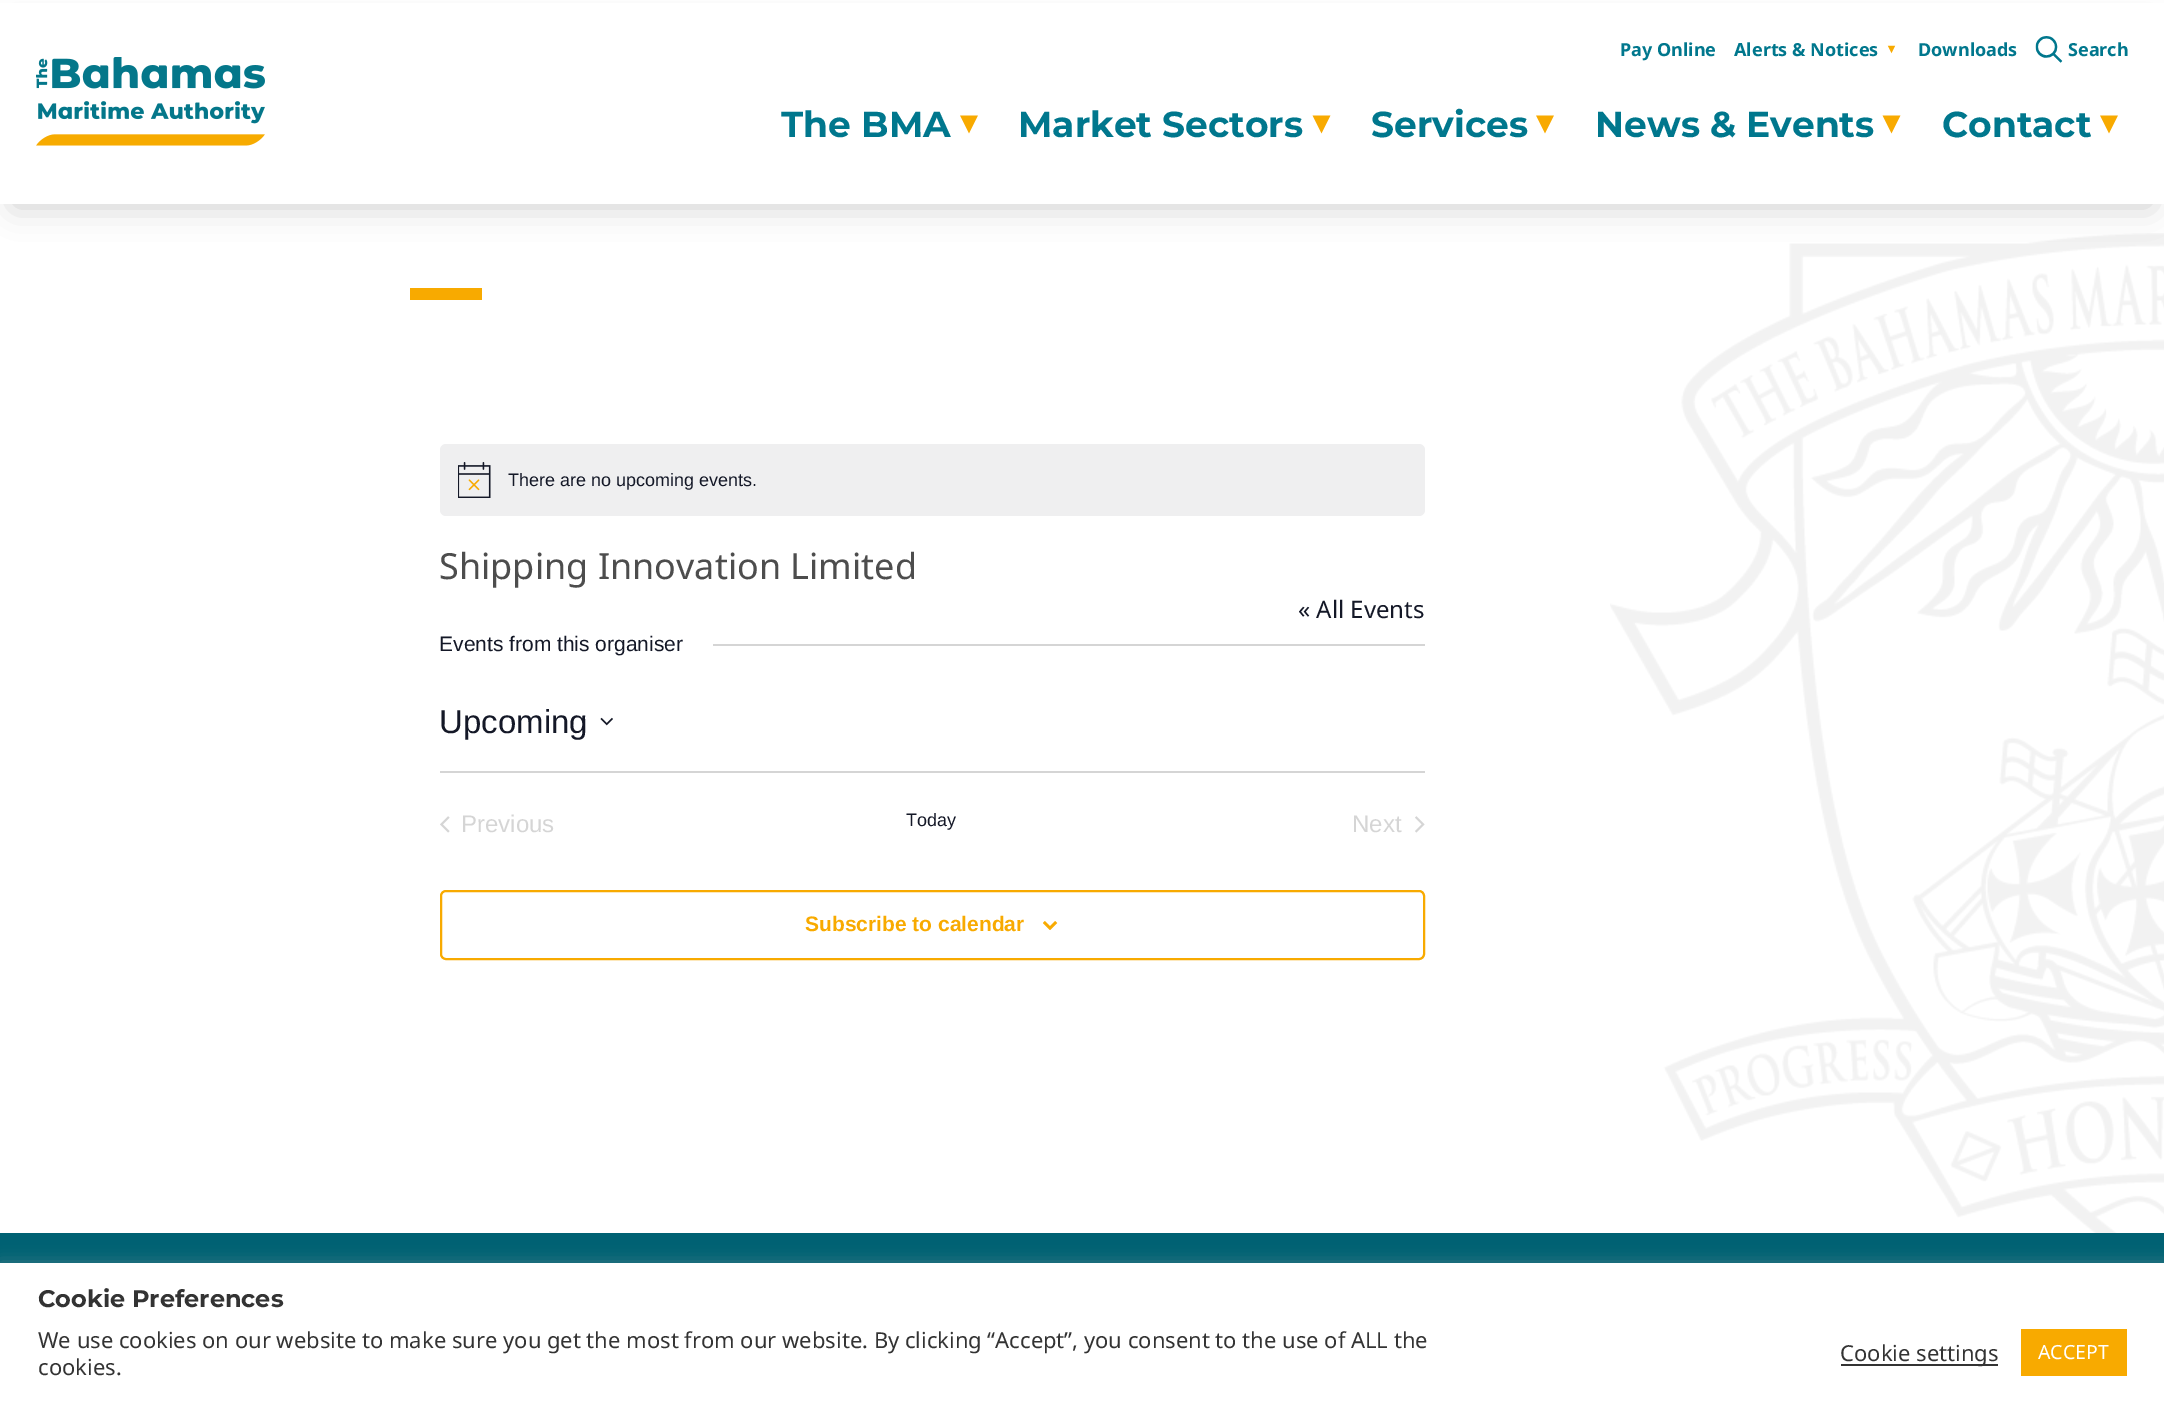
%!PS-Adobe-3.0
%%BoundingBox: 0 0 2164 1404
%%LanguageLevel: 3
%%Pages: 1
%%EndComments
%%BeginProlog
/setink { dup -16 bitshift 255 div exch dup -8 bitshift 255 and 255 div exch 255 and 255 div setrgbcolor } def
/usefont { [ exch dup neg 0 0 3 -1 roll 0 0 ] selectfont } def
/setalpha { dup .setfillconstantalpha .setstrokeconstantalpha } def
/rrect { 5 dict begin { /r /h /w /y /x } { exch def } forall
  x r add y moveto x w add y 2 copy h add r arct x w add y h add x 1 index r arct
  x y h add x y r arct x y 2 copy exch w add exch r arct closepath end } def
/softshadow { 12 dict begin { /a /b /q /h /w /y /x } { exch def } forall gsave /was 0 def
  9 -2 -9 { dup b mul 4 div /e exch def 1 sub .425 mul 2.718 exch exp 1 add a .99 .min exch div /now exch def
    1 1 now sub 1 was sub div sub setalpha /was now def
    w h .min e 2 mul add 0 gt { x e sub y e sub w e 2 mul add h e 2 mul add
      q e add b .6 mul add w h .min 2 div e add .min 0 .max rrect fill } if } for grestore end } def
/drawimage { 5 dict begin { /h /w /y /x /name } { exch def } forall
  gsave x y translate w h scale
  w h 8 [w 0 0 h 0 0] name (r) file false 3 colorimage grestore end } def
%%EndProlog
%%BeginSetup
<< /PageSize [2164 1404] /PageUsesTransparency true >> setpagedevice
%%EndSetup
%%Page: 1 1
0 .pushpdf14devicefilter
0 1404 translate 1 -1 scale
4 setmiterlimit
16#FFFFFF setink
0 0 2164 1404 rectfill
(img6.raw) 1610 233 554 1000 drawimage
16#000000 setink
14 29 2137 177 0 16 0.2 softshadow
16#FFFFFF setink
0 3 2164 201 rectfill
(img1.raw) 36 57 229 89 drawimage
/NotoSans-Bold 18 usefont
16#00778D setink
1620 56 moveto (Pay Online) show
1734 56 moveto (Alerts & Notices) show
(img2.raw) 1887 45 9 9 drawimage
1918 56 moveto (Downloads) show
(img3.raw) 2035 36 28 27 drawimage
2068 56 moveto (Search) show
/Montserrat-Bold 36 usefont
781 137 moveto (The BMA) show
(img4.raw) 960 115 18 19 drawimage
1018 137 moveto (Market Sectors) show
(img5.raw) 1312 115 19 19 drawimage
1371 137 moveto (Services) show
(img4.raw) 1536 115 18 19 drawimage
1595 137 moveto (News & Events) show
(img5.raw) 1882 115 19 19 drawimage
1942 137 moveto (Contact) show
(img4.raw) 2100 115 18 19 drawimage
16#F8AA00 setink
410 288 72 12 rectfill
16#EFEFF0 setink
440 444 985 72 6 rrect fill
(img7.raw) 458 462 33 36 drawimage
/LiberationSans-Regular 18 usefont
16#141827 setink
508 486 moveto (There are no upcoming events.) show
/NotoSans-Regular 36 usefont
16#4D4D4D setink
439 579 moveto (Shipping Innovation Limited) show
/NotoSans-Regular 24 usefont
16#141827 setink
1298 618 moveto (« All Events) show
/LiberationSans-Regular 21 usefont
439 651 moveto (Events from this organiser) show
16#D5D5D5 setink
713 644 712 2 rectfill
/LiberationSans-Regular 33 usefont
16#141827 setink
439 733 moveto (Upcoming) show
(img8.raw) 600 717 13 9 drawimage
16#D5D5D5 setink
440 771 985 2 rectfill
(img9.raw) 440 816 10 17 drawimage
/LiberationSans-Regular 24 usefont
461 832 moveto (Previous) show
/LiberationSans-Regular 18 usefont
16#141827 setink
906 826 moveto (Today) show
/LiberationSans-Regular 24 usefont
16#D5D5D5 setink
1352 832 moveto (Next) show
(img10.raw) 1415 816 10 17 drawimage
16#F8AA00 setink
2 setlinewidth
441 891 983 68 5 rrect stroke
/LiberationSans-Bold 21 usefont
805 931 moveto (Subscribe to calendar) show
(img11.raw) 1043 921 15 9 drawimage
16#006173 setink
0 1233 2164 30 rectfill
16#ACABAB setink
0 1262 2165 141 0 7.5 0.3 softshadow
16#FFFFFF setink
0 1263 2164 141 rectfill
/Montserrat-Bold 24 usefont
16#333333 setink
38 1307 moveto (Cookie Preferences) show
/NotoSans-Regular 22 usefont
38 1348 moveto (We use cookies on our website to make sure you get the most from our website. By clicking “Accept”, you consent to the use of ALL the) show
38 1375 moveto (cookies.) show
1841 1364 157 2 rectfill
1840 1361 moveto (Cookie settings) show
16#F8AA00 setink
2021 1329 106 47 rectfill
/NotoSans-Regular 19.5 usefont
16#FFFFFF setink
2038 1359 moveto (ACCEPT) show
.poppdf14devicefilter showpage
%%EOF
